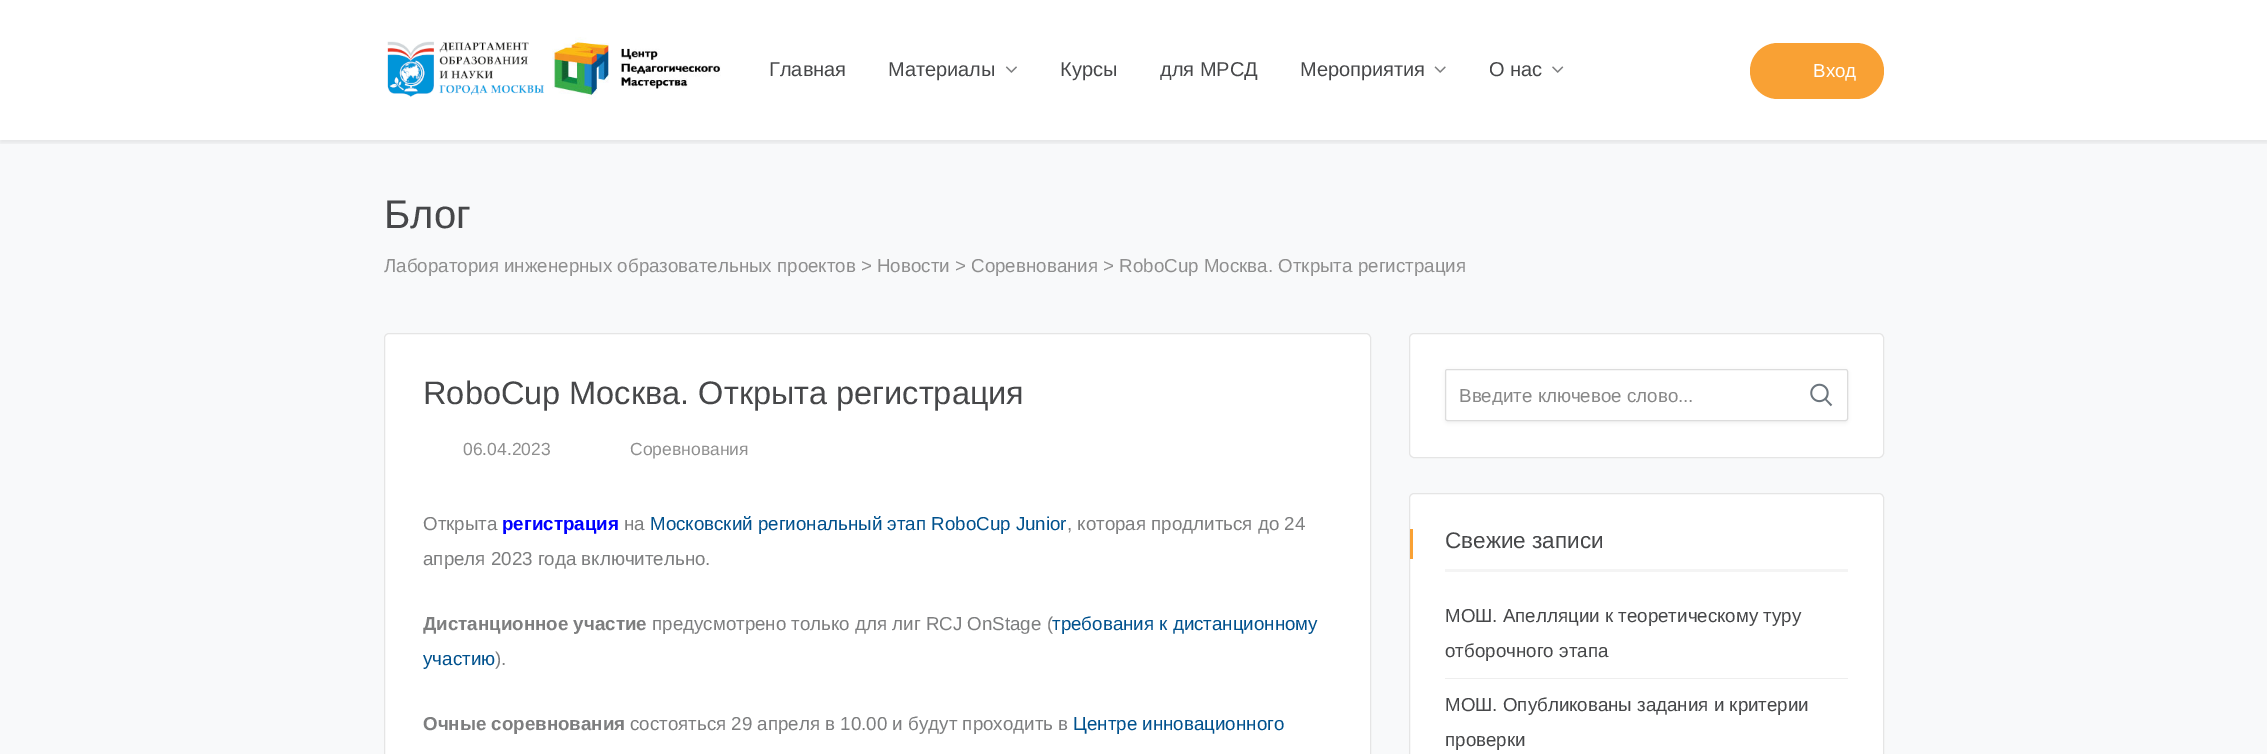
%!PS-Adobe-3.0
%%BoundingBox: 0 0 2267 754
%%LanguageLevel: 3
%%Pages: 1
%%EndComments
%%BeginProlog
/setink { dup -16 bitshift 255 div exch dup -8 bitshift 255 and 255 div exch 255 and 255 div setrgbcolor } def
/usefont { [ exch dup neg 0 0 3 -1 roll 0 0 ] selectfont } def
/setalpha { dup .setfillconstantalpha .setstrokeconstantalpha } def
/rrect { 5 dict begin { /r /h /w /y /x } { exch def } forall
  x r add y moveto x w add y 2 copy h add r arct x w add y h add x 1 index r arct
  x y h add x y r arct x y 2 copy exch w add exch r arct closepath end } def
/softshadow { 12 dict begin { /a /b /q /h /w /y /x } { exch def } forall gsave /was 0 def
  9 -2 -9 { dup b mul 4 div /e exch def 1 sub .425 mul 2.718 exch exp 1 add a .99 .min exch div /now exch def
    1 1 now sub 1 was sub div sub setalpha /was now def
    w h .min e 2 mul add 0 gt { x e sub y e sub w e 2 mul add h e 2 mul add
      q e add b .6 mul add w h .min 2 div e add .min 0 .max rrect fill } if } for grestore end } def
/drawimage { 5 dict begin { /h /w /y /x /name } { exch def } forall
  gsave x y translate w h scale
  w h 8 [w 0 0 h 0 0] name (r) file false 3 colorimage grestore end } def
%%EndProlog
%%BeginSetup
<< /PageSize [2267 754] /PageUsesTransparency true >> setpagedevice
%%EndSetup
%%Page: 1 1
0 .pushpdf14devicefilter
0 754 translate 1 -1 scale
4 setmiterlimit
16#FFFFFF setink
0 0 2267 754 rectfill
16#F8F9FA setink
0 140 2267 614 rectfill
gsave
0 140 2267 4 rectclip
16#000000 setink
0 3 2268 140 0 2.5 0.07 softshadow
grestore
(img1.raw) 387 37 334 62 drawimage
/LiberationSans-Regular 20 usefont
16#464749 setink
769 76 moveto (Главная) show
888 76 moveto (Материалы) show
(img2.raw) 1005 66 12 7 drawimage
[
    [(Курсы) 1060 76]
    [(для МРСД) 1160 76]
    [(Мероприятия) 1300 76]
] { aload pop moveto show } forall
(img3.raw) 1434 66 12 7 drawimage
1489 76 moveto (О нас) show
(img4.raw) 1552 66 12 7 drawimage
16#F9A134 setink
1750 43 134 56 28 rrect fill
/LiberationSans-Regular 18.75 usefont
16#FFFFFF setink
1813 77 moveto (Вход) show
/LiberationSans-Regular 40 usefont
16#464749 setink
384 228 moveto (Блог) show
/LiberationSans-Regular 18.75 usefont
16#8F8F8F setink
384 272 moveto (Лаборатория инженерных образовательных проектов > Новости > Соревнования > RoboCup Москва. Открыта регистрация) show
16#FFFFFF setink
384.5 333.5 986 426 4.5 rrect gsave fill grestore
16#E5E5E5 setink
stroke
/LiberationSans-Regular 32.5 usefont
16#464749 setink
423 404 moveto (RoboCup Москва. Открыта регистрация) show
/LiberationSans-Regular 17.5 usefont
16#8F8F8F setink
463 455 moveto (06.04.2023) show
630 455 moveto (Соревнования) show
/LiberationSans-Regular 18.75 usefont
16#7D7E7F setink
423 530 moveto (Открыта) show
/LiberationSans-Bold 18.75 usefont
16#0000FF setink
502 530 moveto (регистрация) show
/LiberationSans-Regular 18.75 usefont
16#7D7E7F setink
624 530 moveto (на) show
16#00518D setink
650 530 moveto (Московский региональный этап RoboCup Junior) show
16#7D7E7F setink
1067 530 moveto (, которая продлиться до 24) show
423 565 moveto (апреля 2023 года включительно.) show
gsave
423 506 910 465 rectclip
/LiberationSans-Bold 18.75 usefont
423 630 moveto (Дистанционное участие) show
grestore
652 630 moveto (предусмотрено только для лиг RCJ OnStage \() show
16#00518D setink
1052 630 moveto (требования к дистанционному) show
423 665 moveto (участию) show
16#7D7E7F setink
495 665 moveto (\).) show
/LiberationSans-Bold 18.75 usefont
423 730 moveto (Очные соревнования) show
/LiberationSans-Regular 18.75 usefont
630 730 moveto (состояться 29 апреля в 10.00 и будут проходить в) show
16#00518D setink
1073 730 moveto (Центре инновационного) show
16#FFFFFF setink
1409.5 333.5 474 124 4.5 rrect gsave fill grestore
16#E5E5E5 setink
stroke
16#000000 setink
1445 370 403 53 2.5 2 0.06 softshadow
16#FFFFFF setink
1445.5 369.5 402 51 2 rrect gsave fill grestore
16#DCDCDC setink
stroke
gsave
1459 384 330 21 rectclip
16#888888 setink
1459 402 moveto (Введите ключевое слово...) show
grestore
(img5.raw) 1810 383 23 24 drawimage
16#FFFFFF setink
1409.5 493.5 474 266 4.5 rrect gsave fill grestore
16#E5E5E5 setink
stroke
16#F9A134 setink
1410 529 3 30 rectfill
/LiberationSans-Regular 22.5 usefont
16#464749 setink
1445 548 moveto (Свежие записи) show
16#F4F4F4 setink
1445 569 403 3 rectfill
16#EEEEEE setink
1445 678 403 1 rectfill
/LiberationSans-Regular 18.75 usefont
16#464749 setink
[
    [(МОШ. Апелляции к теоретическому туру) 1445 622]
    [(отборочного этапа) 1445 657]
    [(МОШ. Опубликованы задания и критерии) 1445 711]
    [(проверки) 1445 746]
] { aload pop moveto show } forall
.poppdf14devicefilter showpage
%%EOF
